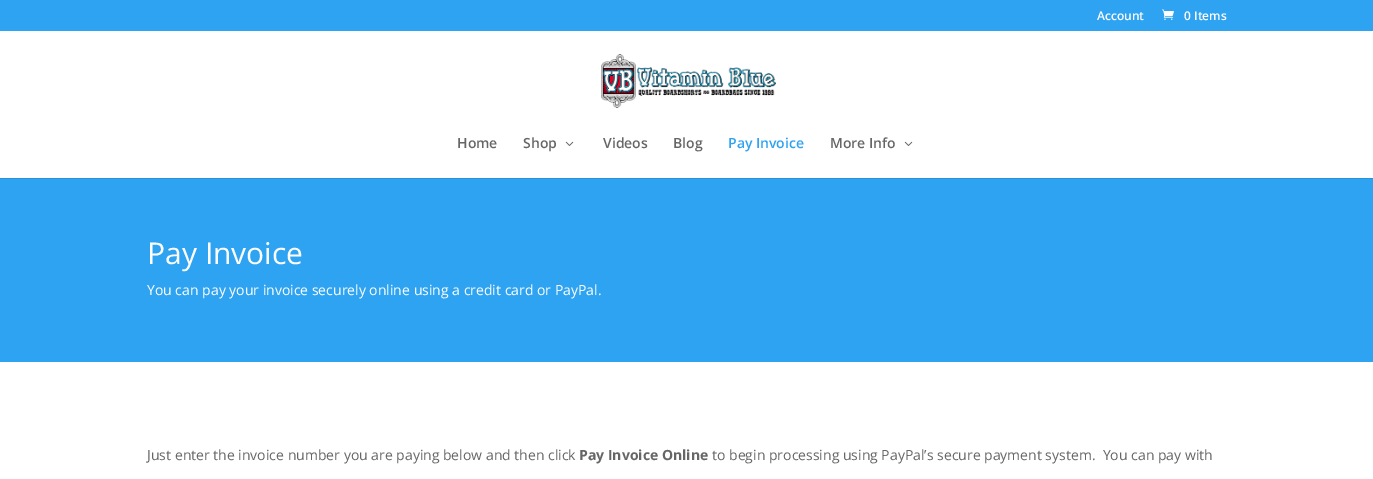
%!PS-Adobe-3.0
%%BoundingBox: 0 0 1373 479
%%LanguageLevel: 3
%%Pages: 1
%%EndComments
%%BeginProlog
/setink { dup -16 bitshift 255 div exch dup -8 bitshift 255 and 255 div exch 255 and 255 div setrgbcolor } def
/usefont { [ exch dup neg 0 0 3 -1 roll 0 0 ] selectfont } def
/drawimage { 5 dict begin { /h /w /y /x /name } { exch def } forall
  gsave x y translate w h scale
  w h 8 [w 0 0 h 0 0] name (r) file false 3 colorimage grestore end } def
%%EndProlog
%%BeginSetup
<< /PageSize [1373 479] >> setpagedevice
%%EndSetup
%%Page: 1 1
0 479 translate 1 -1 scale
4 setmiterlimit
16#2EA3F2 setink
0 0 1373 479 rectfill
/OpenSans-SemiBold 12 usefont
16#FFFFFF setink
1097 20 moveto (Account) show
(img1.raw) 1162 9 12 11 drawimage
1184 20 moveto (0 Items) show
16#2993DA setink
0 178 1373 1 rectfill
16#FFFFFF setink
0 31 1373 147 rectfill
(img2.raw) 601 54 175 54 drawimage
/OpenSans-SemiBold 14 usefont
16#666666 setink
457 148 moveto (Home) show
523 148 moveto (Shop) show
(img3.raw) 565 141 9 5 drawimage
603 148 moveto (Videos) show
673 148 moveto (Blog) show
16#2EA3F2 setink
728 148 moveto (Pay Invoice) show
16#666666 setink
830 148 moveto (More Info) show
(img3.raw) 904 141 9 5 drawimage
/OpenSans-Regular 30 usefont
16#FFFFFF setink
147 264 moveto (Pay Invoice) show
/OpenSans-Regular 14 usefont
147 295 moveto (You can pay your invoice securely online using a credit card or PayPal.) show
0 362 1373 117 rectfill
16#666666 setink
147 460 moveto (Just enter the invoice number you are paying below and then click) show
/OpenSans-Bold 14 usefont
579 460 moveto (Pay Invoice Online) show
/OpenSans-Regular 14 usefont
712 460 moveto (to begin processing using PayPal’s secure payment system.  You can pay with) show
showpage
%%EOF
